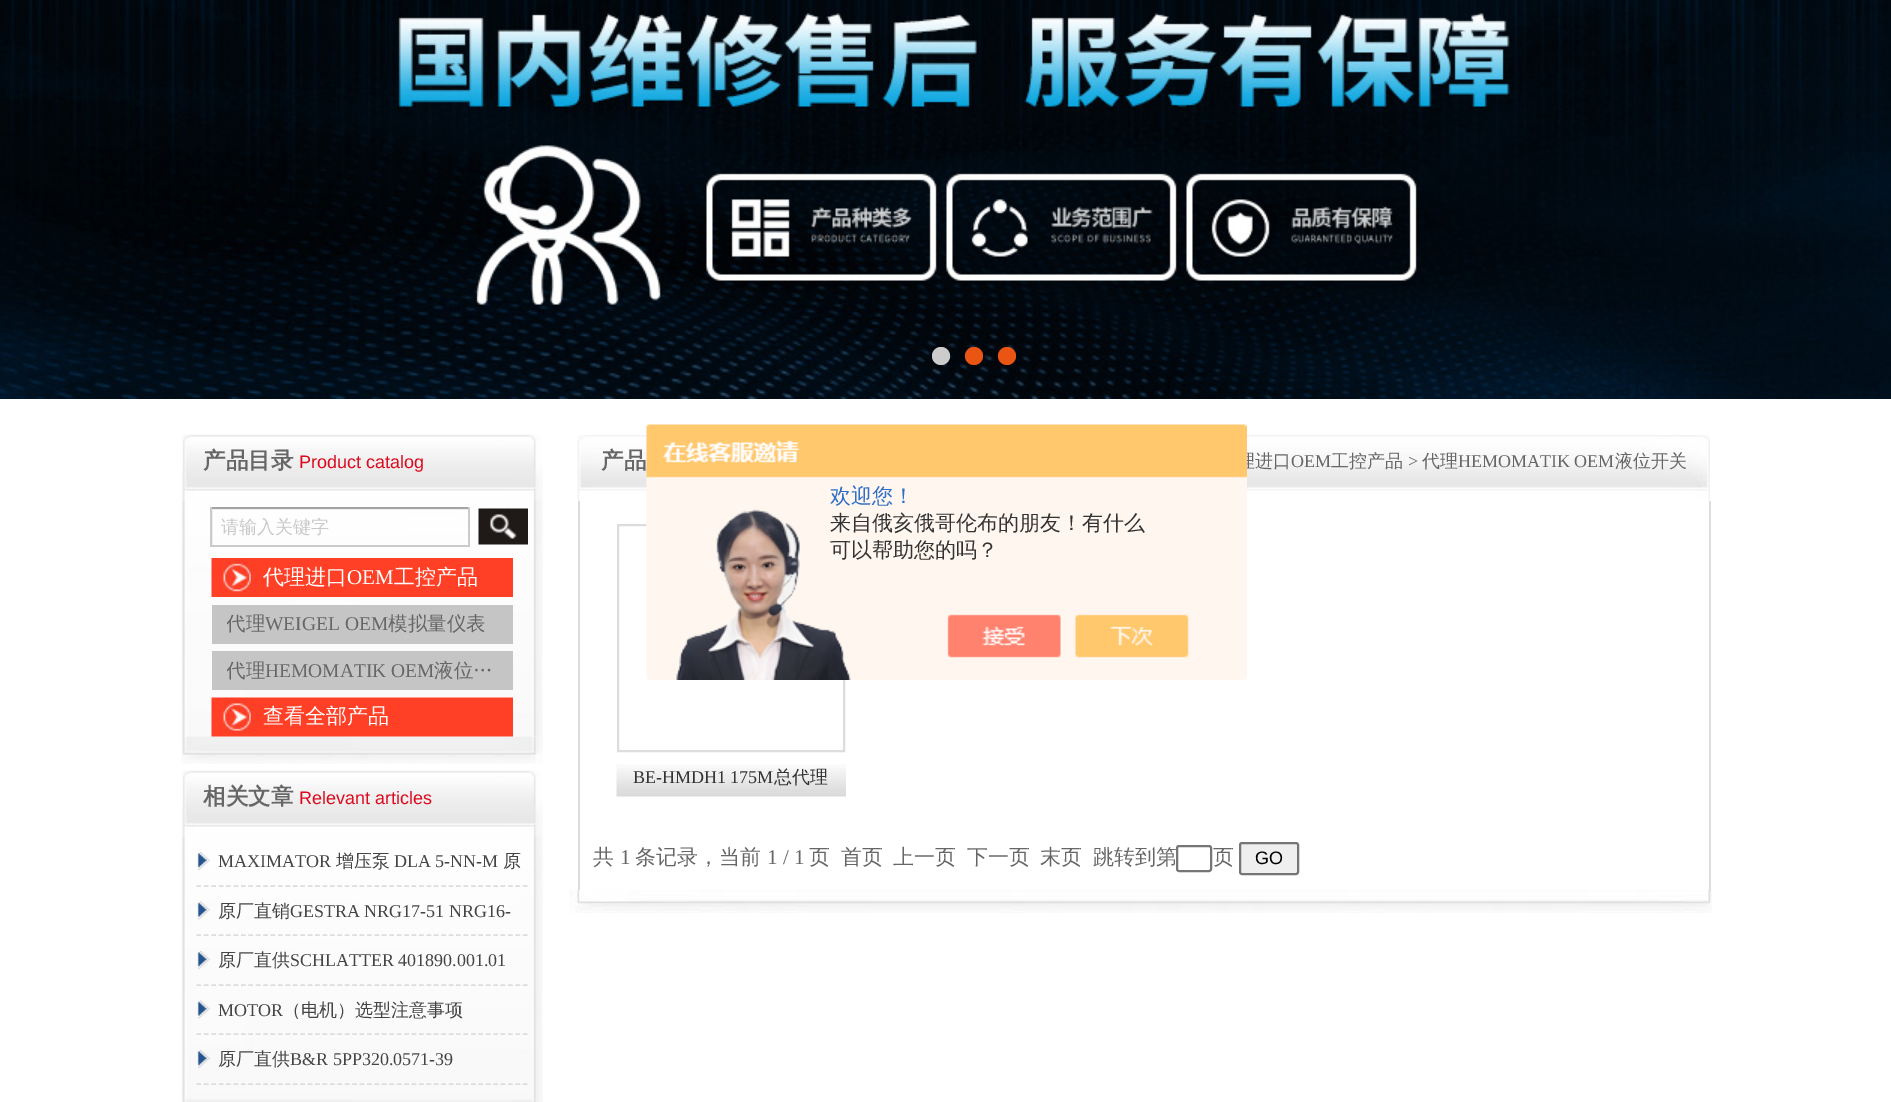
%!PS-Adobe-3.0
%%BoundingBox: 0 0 1891 1102
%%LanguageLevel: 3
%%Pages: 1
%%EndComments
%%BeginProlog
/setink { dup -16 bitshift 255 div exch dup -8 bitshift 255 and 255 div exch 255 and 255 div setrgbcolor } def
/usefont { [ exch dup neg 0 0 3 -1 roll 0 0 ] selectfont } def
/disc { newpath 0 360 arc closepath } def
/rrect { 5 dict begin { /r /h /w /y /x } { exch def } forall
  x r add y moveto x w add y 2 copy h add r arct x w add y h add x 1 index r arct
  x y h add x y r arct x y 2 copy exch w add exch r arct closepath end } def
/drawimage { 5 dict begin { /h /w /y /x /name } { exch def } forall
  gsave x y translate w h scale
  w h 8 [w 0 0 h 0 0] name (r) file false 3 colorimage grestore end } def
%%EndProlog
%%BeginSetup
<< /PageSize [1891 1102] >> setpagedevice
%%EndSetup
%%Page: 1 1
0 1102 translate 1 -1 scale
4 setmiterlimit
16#FFFFFF setink
0 0 1891 1102 rectfill
(img1.raw) 0 0 1891 399 drawimage
16#CCCCCC setink
941 356 9 disc fill
16#EA5514 setink
974 356 9 disc fill
1007 356 9 disc fill
(img2.raw) 181 434 362 67 drawimage
/WenQuanYiZenHei-Bold 22.5 usefont
16#666666 setink
203 468 moveto (产品目录) show
/LiberationSans-Regular 18 usefont
16#DB0A1D setink
299 468 moveto (Product catalog) show
(img3.raw) 181 501 362 236 drawimage
gsave
212 509 256 36 rectclip
16#EEEEEE setink
63 360 moveto 616 360 lineto 616 693 lineto 63 693 lineto closepath 213 510 moveto 470 510 lineto 470 546 lineto 213 546 lineto closepath eofill
grestore
[
    [210 507 260 2 16#A4A4A4]
    [468 507 2 39 16#CBCBCB]
    [210 545 260 2 16#CBCBCB]
    [210 507 2 39 16#CBCBCB]
] { aload pop setink rectfill } forall
/WenQuanYiZenHei-Medium 18 usefont
16#CAC9C9 setink
221 533 moveto (请输入关键字) show
(img4.raw) 478 508 50 37 drawimage
(img5.raw) 211 558 302 39 drawimage
/WenQuanYiZenHei-Medium 21 usefont
16#FFFFFF setink
263 584 moveto (代理进口) show
/LiberationSerif-Regular 21 usefont
347 584 moveto (OEM) show
/WenQuanYiZenHei-Medium 21 usefont
394 584 moveto (工控产品) show
16#C5C5C5 setink
212 605 301 39 rectfill
gsave
227 605 286 39 rectclip
/WenQuanYiZenHei-Medium 19.5 usefont
16#666666 setink
226 630 moveto (代理) show
grestore
/LiberationSerif-Regular 19.5 usefont
16#666666 setink
265 630 moveto (WEIGEL OEM) show
/WenQuanYiZenHei-Medium 19.5 usefont
388 630 moveto (模拟量仪表) show
16#C5C5C5 setink
212 651 301 39 rectfill
gsave
227 651 286 39 rectclip
16#666666 setink
226 677 moveto (代理) show
grestore
/LiberationSerif-Regular 19.5 usefont
16#666666 setink
265 677 moveto (HEMOMATIK OEM) show
/WenQuanYiZenHei-Medium 19.5 usefont
434 677 moveto (液位…) show
(img7.raw) 181 736 362 28 drawimage
(img6.raw) 211 697 302 40 drawimage
/WenQuanYiZenHei-Medium 21 usefont
16#FFFFFF setink
263 723 moveto (查看全部产品) show
(img2.raw) 181 770 362 67 drawimage
/WenQuanYiZenHei-Bold 22.5 usefont
16#666666 setink
203 804 moveto (相关文章) show
/LiberationSans-Regular 18 usefont
16#DB0A1D setink
299 804 moveto (Relevant articles) show
(img8.raw) 181 837 362 263 drawimage
(img9.raw) 197 852 13 19 drawimage
16#DDDDDD setink
1.5 setlinewidth
[4.5 2.92] 0 setdash
196.5 886 moveto 528 886 lineto stroke
/LiberationSerif-Regular 18 usefont
16#444444 setink
218 867 moveto (MAXIMATOR) show
/WenQuanYiZenHei-Medium 18 usefont
336 867 moveto (增压泵) show
/LiberationSerif-Regular 18 usefont
394 867 moveto (DLA 5-NN-M) show
/WenQuanYiZenHei-Medium 18 usefont
503 867 moveto (原) show
(img10.raw) 197 901 13 19 drawimage
16#DDDDDD setink
196.5 935 moveto 528 935 lineto stroke
16#444444 setink
218 917 moveto (原厂直销) show
/LiberationSerif-Regular 18 usefont
290 917 moveto (GESTRA NRG17-51 NRG16-) show
(img11.raw) 197 951 13 19 drawimage
16#DDDDDD setink
196.5 985 moveto 528 985 lineto stroke
/WenQuanYiZenHei-Medium 18 usefont
16#444444 setink
218 966 moveto (原厂直供) show
/LiberationSerif-Regular 18 usefont
290 966 moveto (SCHLATTER 401890.001.01) show
(img12.raw) 197 1000 13 19 drawimage
16#DDDDDD setink
196.5 1034 moveto 528 1034 lineto stroke
16#444444 setink
218 1016 moveto (MOTOR) show
/WenQuanYiZenHei-Medium 18 usefont
283 1016 moveto (（电机）选型注意事项) show
(img13.raw) 197 1050 13 19 drawimage
16#DDDDDD setink
196.5 1084 moveto 528 1084 lineto stroke
16#444444 setink
218 1065 moveto (原厂直供) show
/LiberationSerif-Regular 18 usefont
290 1065 moveto (B&R 5PP320.0571-39) show
(img14.raw) 181 1099 362 3 drawimage
(img15.raw) 577 435 1133 66 drawimage
/WenQuanYiZenHei-Bold 22.5 usefont
16#666666 setink
601 468 moveto (产品) show
/WenQuanYiZenHei-Medium 18 usefont
1237 467 moveto (理进口) show
/LiberationSerif-Regular 18 usefont
1291 467 moveto (OEM) show
/WenQuanYiZenHei-Medium 18 usefont
1331 467 moveto (工控产品) show
/LiberationSerif-Regular 18 usefont
1408 467 moveto (>) show
/WenQuanYiZenHei-Medium 18 usefont
1422 467 moveto (代理) show
/LiberationSerif-Regular 18 usefont
1458 467 moveto (HEMOMATIK OEM) show
/WenQuanYiZenHei-Medium 18 usefont
1615 467 moveto (液位开关) show
(img17.raw) 569 889 1143 24 drawimage
16#DDDDDD setink
1709 501 2 389 rectfill
578 501 2 389 rectfill
2 setlinewidth
[] 0 setdash
618 525 226 226 rectstroke
(img16.raw) 616 764 230 33 drawimage
/LiberationSerif-Regular 18 usefont
16#333333 setink
633 783 moveto (BE-HMDH1 175M) show
/WenQuanYiZenHei-Medium 18 usefont
774 783 moveto (总代理) show
/WenQuanYiZenHei-Medium 21 usefont
16#666666 setink
593 864 moveto (共) show
/LiberationSerif-Regular 21 usefont
620 864 moveto (1) show
/WenQuanYiZenHei-Medium 21 usefont
635 864 moveto (条记录，当前) show
/LiberationSerif-Regular 21 usefont
767 864 moveto (1 / 1) show
/WenQuanYiZenHei-Medium 21 usefont
[
    [(页) 809 864]
    [(首页) 841 864]
    [(上一页) 893 864]
    [(下一页) 967 864]
    [(末页) 1040 864]
    [(跳转到第) 1093 864]
] { aload pop moveto show } forall
16#767676 setink
1177 846 34 25 2 rrect stroke
16#666666 setink
1213 864 moveto (页) show
16#EFEFEF setink
1240 843 58 31 2 rrect gsave fill grestore
16#767676 setink
stroke
/LiberationSans-Regular 18 usefont
16#000000 setink
1255 864 moveto (GO) show
(img18.raw) 646 424 601 256 drawimage
/WenQuanYiZenHei-Medium 21 usefont
16#2E6EC6 setink
830 503 moveto (欢迎您！) show
16#333333 setink
830 530 moveto (来自俄亥俄哥伦布的朋友！有什么) show
830 557 moveto (可以帮助您的吗？) show
showpage
%%EOF
